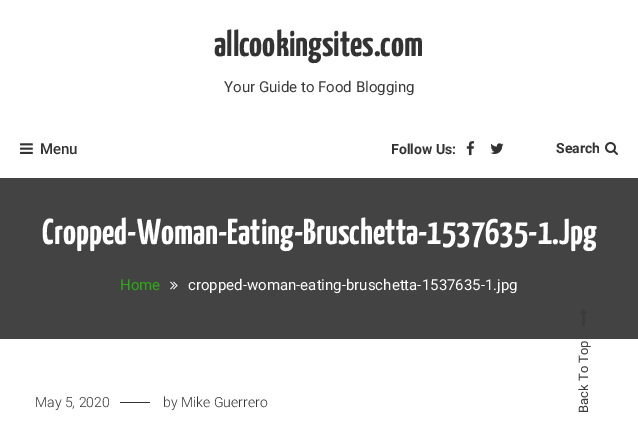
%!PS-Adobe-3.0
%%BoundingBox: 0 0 638 441
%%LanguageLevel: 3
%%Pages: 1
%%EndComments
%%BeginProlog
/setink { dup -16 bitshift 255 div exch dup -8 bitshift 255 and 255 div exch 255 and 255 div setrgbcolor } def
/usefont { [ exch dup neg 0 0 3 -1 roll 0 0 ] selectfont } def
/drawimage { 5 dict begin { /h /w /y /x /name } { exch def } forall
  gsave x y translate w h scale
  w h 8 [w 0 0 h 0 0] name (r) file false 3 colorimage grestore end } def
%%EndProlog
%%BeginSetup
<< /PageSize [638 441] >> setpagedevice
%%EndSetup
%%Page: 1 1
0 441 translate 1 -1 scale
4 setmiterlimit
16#FFFFFF setink
0 0 638 441 rectfill
/YanoneKaffeesatz-Bold 36 usefont
16#333333 setink
214 56 moveto (allcookingsites.com) show
/Roboto-Regular 15 usefont
16#3B3B3B setink
224 92 moveto (Your Guide to Food Blogging) show
(img1.raw) 20 143 13 11 drawimage
/Roboto-Medium 15 usefont
16#333333 setink
40 154 moveto (Menu) show
/Roboto-Bold 14 usefont
391 154 moveto (Follow Us:) show
(img2.raw) 466 141 9 15 drawimage
(img3.raw) 490 143 14 11 drawimage
556 153 moveto (Search) show
(img4.raw) 605 142 13 13 drawimage
16#434343 setink
0 178 638 161 rectfill
/YanoneKaffeesatz-Bold 36 usefont
16#FFFFFF setink
42 244 moveto (Cropped-Woman-Eating-Bruschetta-1537635-1.Jpg) show
/Roboto-Regular 15 usefont
16#2EA918 setink
120 290 moveto (Home) show
(img5.raw) 170 281 8 9 drawimage
16#FFFFFF setink
188 290 moveto (cropped-woman-eating-bruschetta-1537635-1.jpg) show
/Roboto-Light 14 usefont
16#333333 setink
35 407 moveto (May 5, 2020) show
120 402 30 1 rectfill
16#3B3B3B setink
163 407 moveto (by) show
16#333333 setink
181 407 moveto (Mike Guerrero) show
(img6.raw) 580 309 7 17 drawimage
/Roboto-Regular 13 usefont
16#3B3B3B setink
gsave 588 413 translate -90 rotate 0 0 moveto (Back To Top) show grestore
showpage
%%EOF
